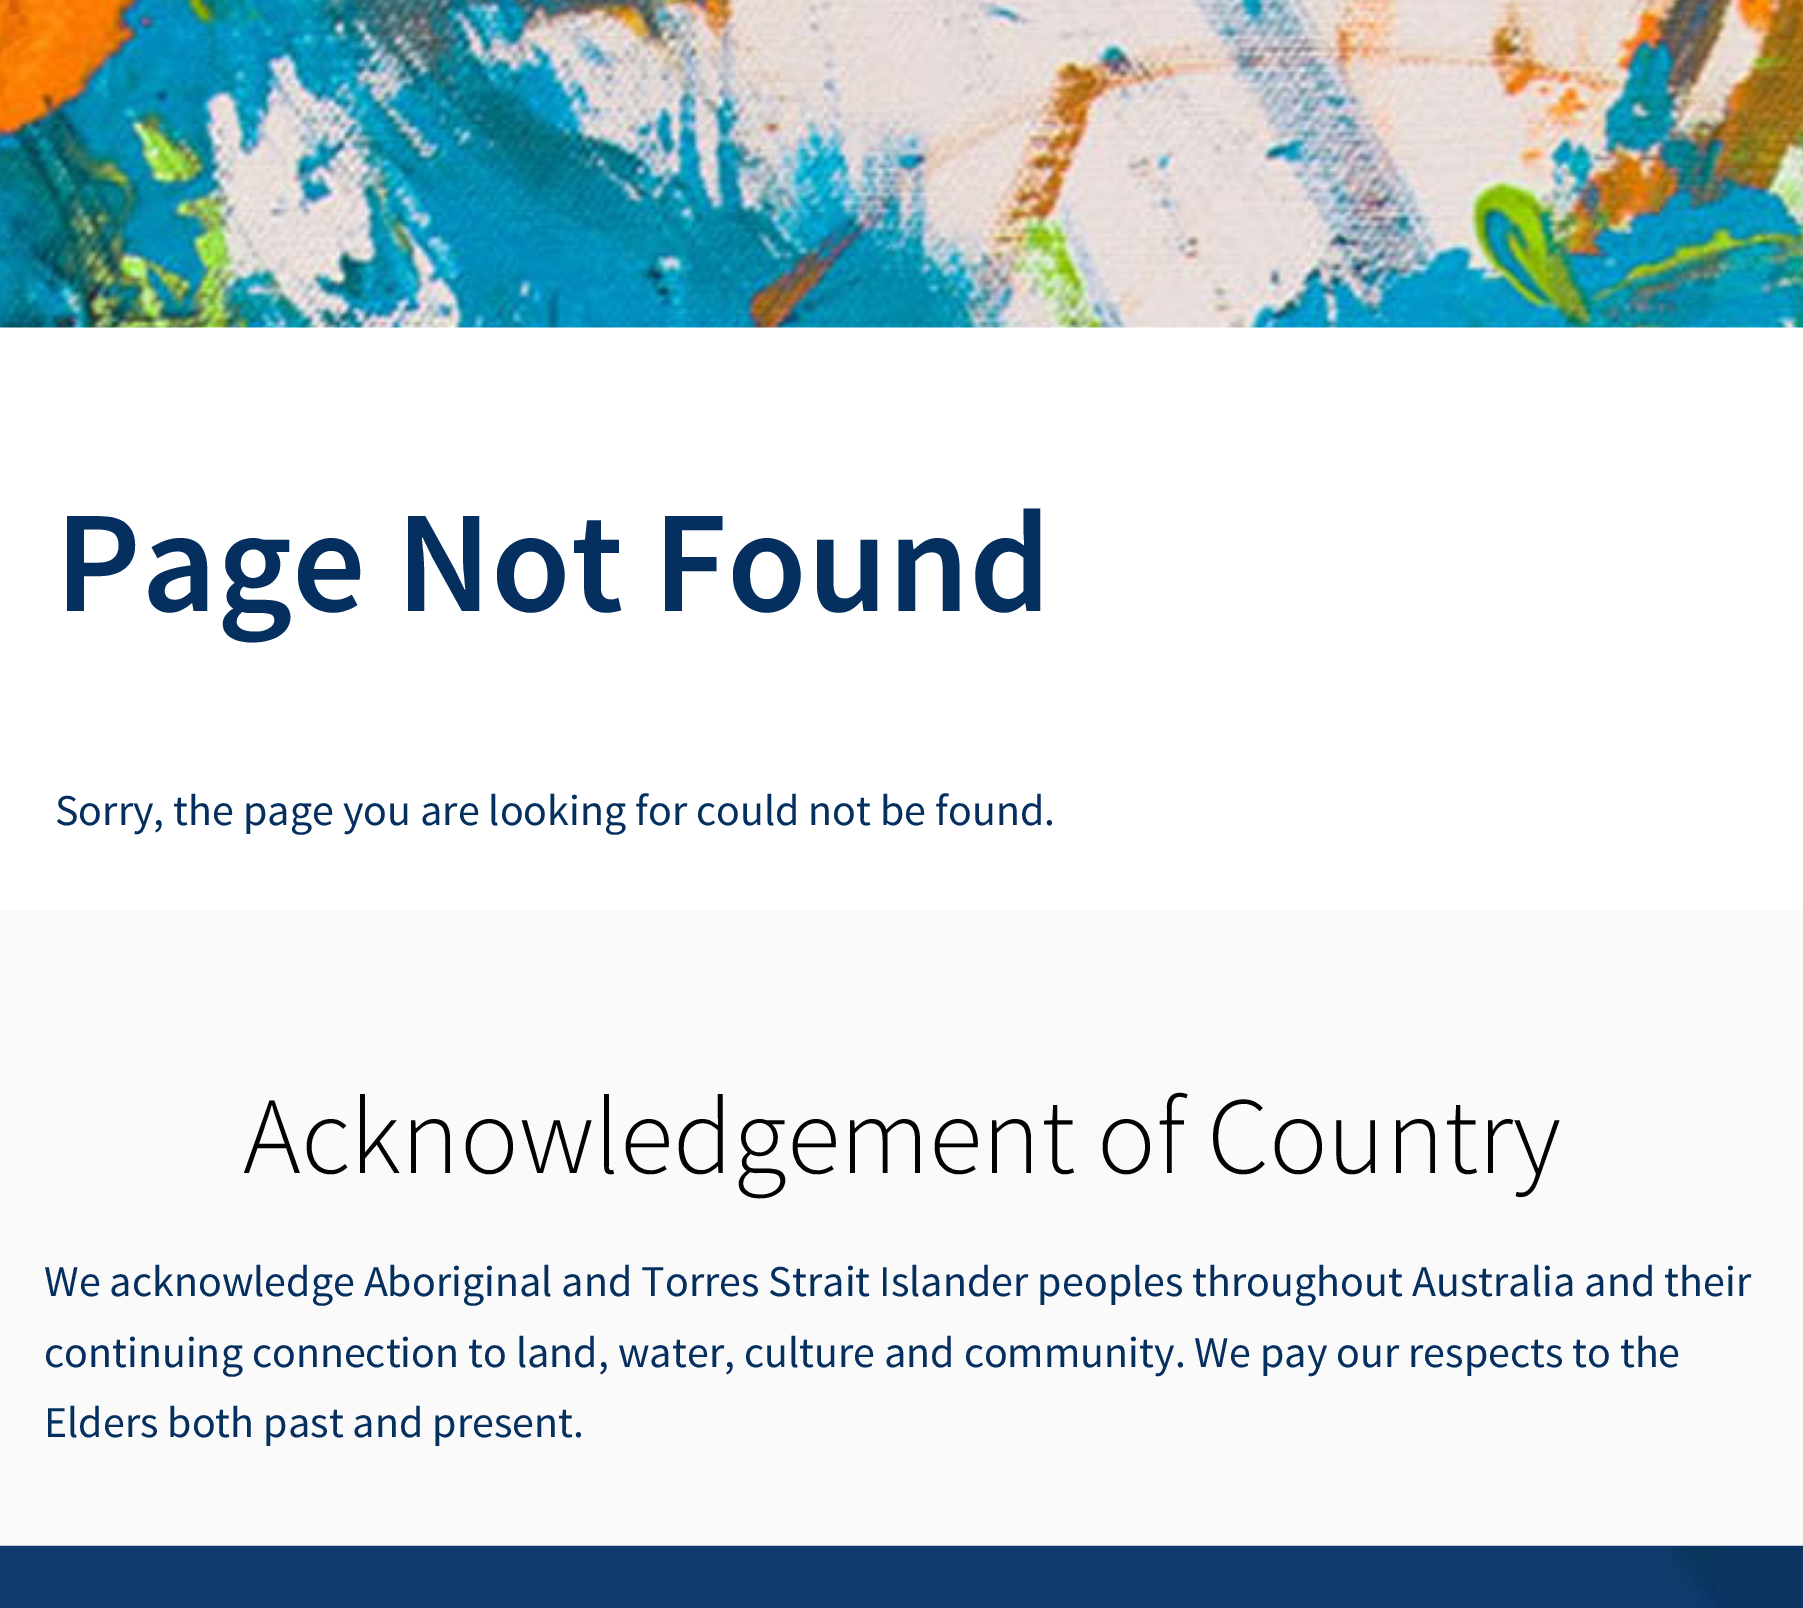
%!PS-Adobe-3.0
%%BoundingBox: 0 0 1803 1608
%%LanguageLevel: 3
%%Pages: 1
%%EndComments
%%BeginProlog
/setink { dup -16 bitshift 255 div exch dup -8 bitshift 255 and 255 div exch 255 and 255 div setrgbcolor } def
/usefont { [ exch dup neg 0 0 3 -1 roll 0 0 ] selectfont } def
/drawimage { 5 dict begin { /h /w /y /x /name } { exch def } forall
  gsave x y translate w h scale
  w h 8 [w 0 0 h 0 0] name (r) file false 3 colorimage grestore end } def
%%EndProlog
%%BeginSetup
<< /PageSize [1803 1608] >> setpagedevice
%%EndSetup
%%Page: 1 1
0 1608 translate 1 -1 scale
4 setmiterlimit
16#FFFFFF setink
0 0 1803 1608 rectfill
(img1.raw) 0 0 1803 328 drawimage
/SourceSansPro-SemiBold 145.25 usefont
16#052F5F setink
55 611 moveto (Page Not Found) show
/SourceSansPro-Regular 44 usefont
55 825 moveto (Sorry, the page you are looking for could not be found.) show
16#FAFAFA setink
0 910 1803 636 rectfill
/SourceSansPro-Light 110 usefont
16#020202 setink
243 1173 moveto (Acknowledgement of Country) show
/SourceSansPro-Regular 44 usefont
16#052F5F setink
[
    [(We acknowledge Aboriginal and Torres Strait Islander peoples throughout Australia and their) 44 1296]
    [(continuing connection to land, water, culture and community. We pay our respects to the) 44 1367]
    [(Elders both past and present.) 44 1437]
] { aload pop moveto show } forall
(img2.raw) 0 1545 1803 63 drawimage
showpage
%%EOF
